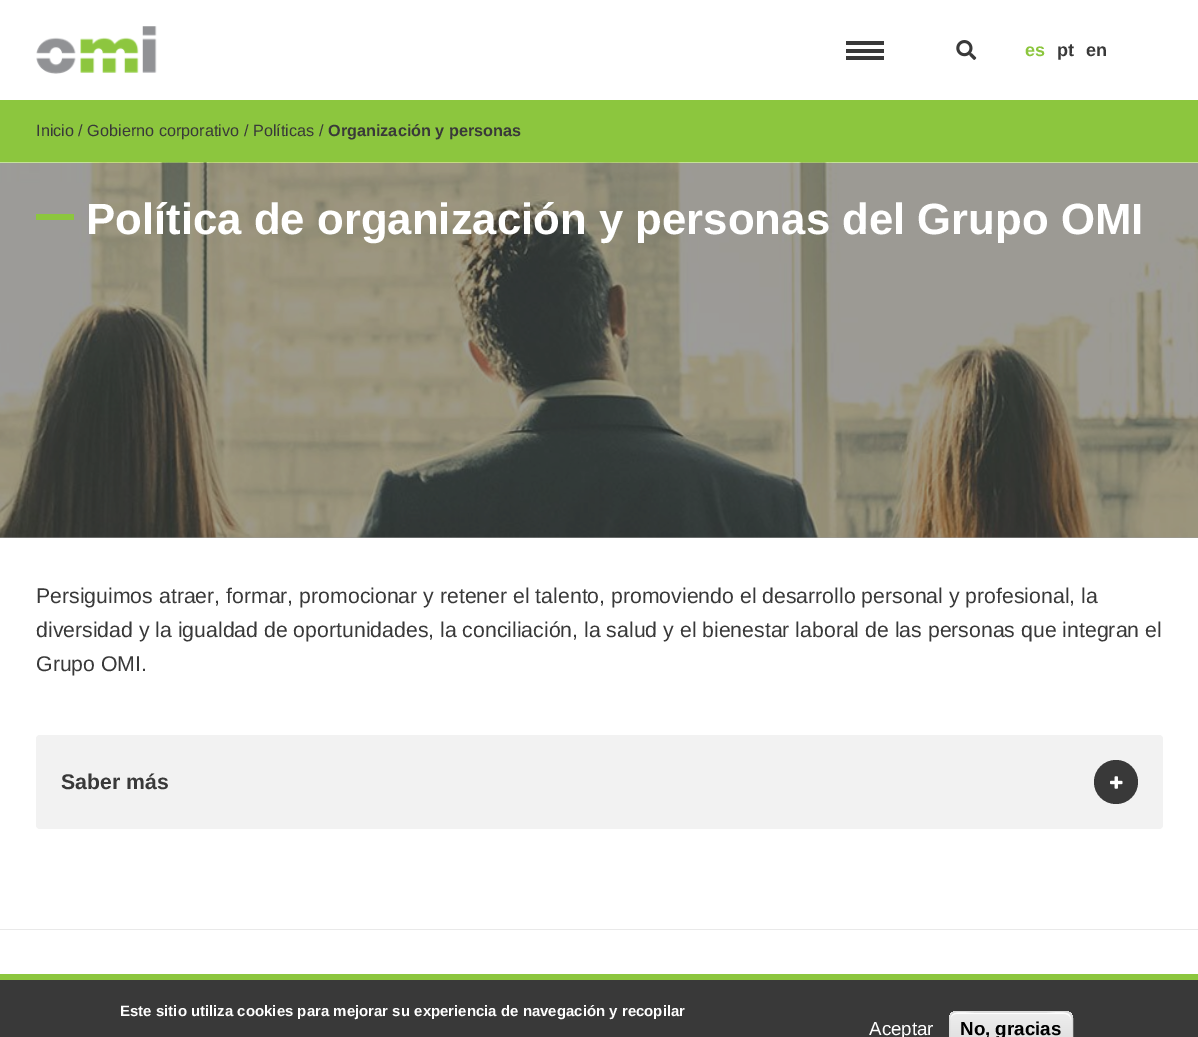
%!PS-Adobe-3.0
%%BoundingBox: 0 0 1198 1037
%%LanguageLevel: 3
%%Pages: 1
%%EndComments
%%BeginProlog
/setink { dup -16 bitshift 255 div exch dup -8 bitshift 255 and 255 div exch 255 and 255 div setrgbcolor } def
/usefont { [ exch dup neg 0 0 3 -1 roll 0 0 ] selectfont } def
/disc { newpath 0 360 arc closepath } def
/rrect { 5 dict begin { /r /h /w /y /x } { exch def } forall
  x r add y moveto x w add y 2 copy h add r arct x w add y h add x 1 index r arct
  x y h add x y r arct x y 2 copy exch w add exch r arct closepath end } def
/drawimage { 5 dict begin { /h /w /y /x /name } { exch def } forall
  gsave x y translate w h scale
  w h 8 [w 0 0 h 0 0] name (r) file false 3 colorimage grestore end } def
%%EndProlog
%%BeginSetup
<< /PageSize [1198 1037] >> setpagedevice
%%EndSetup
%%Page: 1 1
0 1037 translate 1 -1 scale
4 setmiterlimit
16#FFFFFF setink
0 0 1198 1037 rectfill
16#9C9C9C setink
0 537 1198 1 rectfill
(img1.raw) 36 26 121 48 drawimage
[
    [846 41 38 4 16#393939]
    [846 49 38 4 16#393939]
    [846 56 38 4 16#393939]
] { aload pop setink rectfill } forall
(img2.raw) 956 40 21 20 drawimage
/LiberationSans-Bold 18 usefont
16#8CC63E setink
1025 56 moveto (es) show
16#393939 setink
1057 56 moveto (pt) show
1086 56 moveto (en) show
16#8CC63E setink
0 100 1198 63 rectfill
/LiberationSans-Regular 16.25 usefont
16#393939 setink
36 136 moveto (Inicio / Gobierno corporativo / Políticas /) show
/LiberationSans-Bold 16.25 usefont
328 136 moveto (Organización y personas) show
(img3.raw) 0 162 1198 376 drawimage
16#8CC63E setink
36 214 38 6 rectfill
/LiberationSans-Bold 43.75 usefont
16#FFFFFF setink
86 234 moveto (Política de organización y personas del Grupo OMI) show
/LiberationSans-Regular 21.25 usefont
16#393939 setink
[
    [(Persiguimos atraer, formar, promocionar y retener el talento, promoviendo el desarrollo personal y profesional, la) 36 603]
    [(diversidad y la igualdad de oportunidades, la conciliación, la salud y el bienestar laboral de las personas que integran el) 36 637]
    [(Grupo OMI.) 36 671]
] { aload pop moveto show } forall
16#F2F2F2 setink
36 735 1127 94 4 rrect fill
/LiberationSans-Bold 21.25 usefont
16#393939 setink
61 789 moveto (Saber más) show
1116 782 22 disc fill
(img4.raw) 1110 776 13 13 drawimage
[
    [0 929 1198 1 16#E9E9E9]
    [0 980 1198 57 16#393939]
    [0 974 1198 6 16#8CC63E]
] { aload pop setink rectfill } forall
/LiberationSans-Bold 15 usefont
16#FFFFFF setink
120 1016 moveto (Este sitio utiliza cookies para mejorar su experiencia de navegación y recopilar) show
/LiberationSans-Regular 18.75 usefont
869 1035 moveto (Aceptar) show
gsave
949 1011 124 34 8 rrect clip newpath
gsave 949 1011 moveto 1073 1011 lineto 1073 1013 lineto 949 1013 lineto closepath clip newpath
<< /ShadingType 2 /ColorSpace /DeviceRGB /Coords [1011 981 1011 1013] /Extend [true true] /Function << /FunctionType 3 /Domain [0 1] /Functions [<< /FunctionType 2 /Domain [0 1] /C0 [0.929 0.929 0.929] /C1 [0.929 0.929 0.929] /N 1 >> << /FunctionType 2 /Domain [0 1] /C0 [0.929 0.929 0.929] /C1 [0.875 0.875 0.875] /N 1 >>] /Bounds [0.05] /Encode [0 1 0 1] >> >> shfill grestore
gsave 949 1013 moveto 1073 1013 lineto 1073 1037 lineto 949 1037 lineto closepath clip newpath
<< /ShadingType 2 /ColorSpace /DeviceRGB /Coords [1011 1013 1011 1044] /Extend [true true] /Function << /FunctionType 3 /Domain [0 1] /Functions [<< /FunctionType 2 /Domain [0 1] /C0 [0.929 0.929 0.929] /C1 [0.929 0.929 0.929] /N 1 >> << /FunctionType 2 /Domain [0 1] /C0 [0.929 0.929 0.929] /C1 [0.875 0.875 0.875] /N 1 >>] /Bounds [0.05] /Encode [0 1 0 1] >> >> shfill grestore
grestore
956 1014 moveto 1065 1014 lineto 1068 1014 1071 1017 1071 1020 curveto 1071 1008 1053 1013 1047 1013 curveto 974 1013 lineto 968 1013 950 1008 950 1020 curveto 950 1017 953 1014 956 1014 curveto closepath fill
16#DCDCDC setink
949.5 1011.5 123 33 7.5 rrect stroke
/LiberationSans-Bold 18.75 usefont
16#000000 setink
960 1035 moveto (No, gracias) show
showpage
%%EOF
